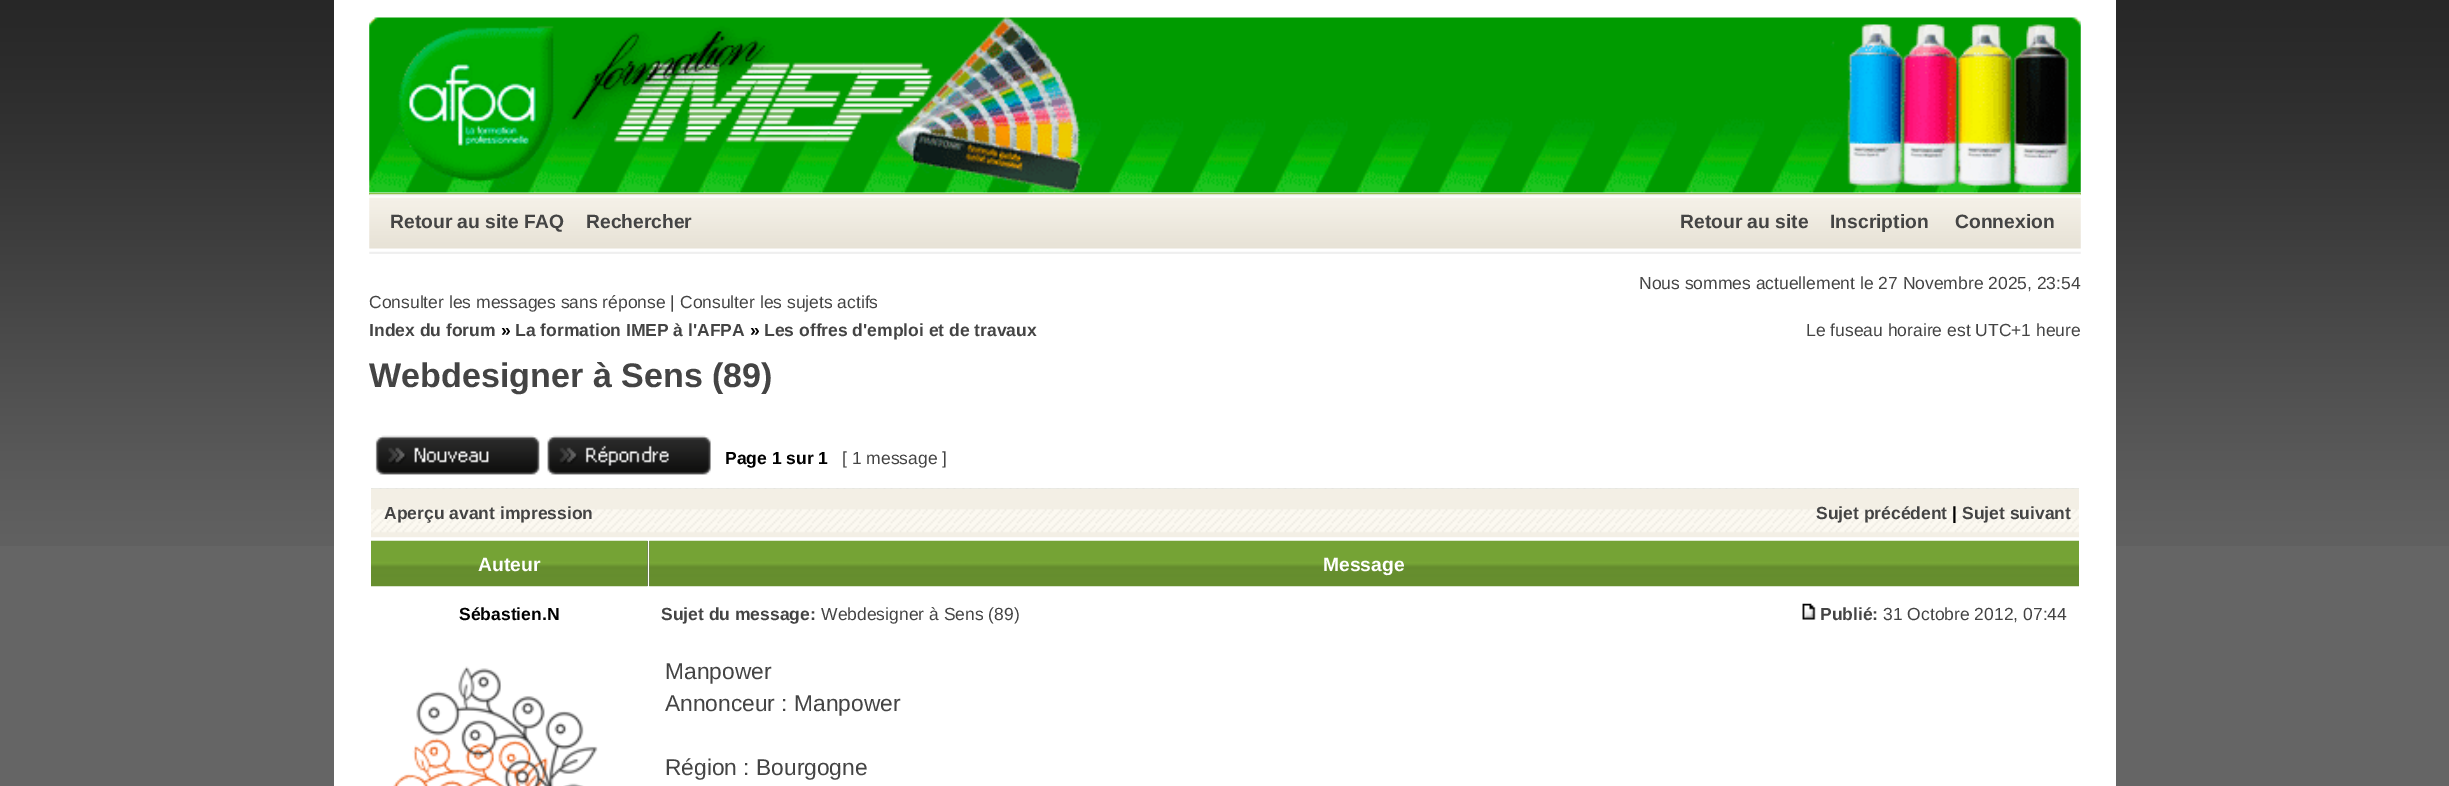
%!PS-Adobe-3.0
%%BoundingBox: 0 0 2449 786
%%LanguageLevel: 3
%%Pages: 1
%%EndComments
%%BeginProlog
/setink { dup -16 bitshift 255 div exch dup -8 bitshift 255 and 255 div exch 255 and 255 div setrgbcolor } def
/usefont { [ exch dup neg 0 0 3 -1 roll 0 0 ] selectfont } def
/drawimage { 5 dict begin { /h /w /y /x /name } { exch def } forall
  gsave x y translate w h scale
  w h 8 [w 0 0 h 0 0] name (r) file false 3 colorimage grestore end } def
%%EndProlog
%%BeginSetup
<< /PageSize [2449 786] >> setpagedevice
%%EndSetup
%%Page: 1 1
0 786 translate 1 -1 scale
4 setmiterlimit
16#656565 setink
0 0 2449 786 rectfill
(img1.raw) 0 0 2449 546 drawimage
16#FFFFFF setink
334 0 1782 786 rectfill
16#8DC047 setink
369 193 1712 2 rectfill
(img2.raw) 369 17 1712 176 drawimage
(img3.raw) 369 194 1712 60 drawimage
/LiberationSans-Bold 19.25 usefont
16#444444 setink
[
    [(Retour au site FAQ) 390 228]
    [(Rechercher) 586 228]
    [(Retour au site) 1680 228]
    [(Inscription) 1830 228]
    [(Connexion) 1955 228]
] { aload pop moveto show } forall
/LiberationSans-Regular 17.5 usefont
1639 289 moveto (Nous sommes actuellement le 27 Novembre 2025, 23:54) show
369 308 moveto (Consulter les messages sans réponse | Consulter les sujets actifs) show
/LiberationSans-Bold 17.5 usefont
369 336 moveto (Index du forum) show
16#000000 setink
501 336 moveto (») show
16#444444 setink
515 336 moveto (La formation IMEP à l'AFPA) show
16#000000 setink
750 336 moveto (») show
16#444444 setink
764 336 moveto (Les offres d'emploi et de travaux) show
/LiberationSans-Regular 17.5 usefont
1806 336 moveto (Le fuseau horaire est UTC+1 heure) show
/LiberationSans-Bold 34.1 usefont
369 387 moveto (Webdesigner à Sens \(89\)) show
(img4.raw) 375 435 165 40 drawimage
(img5.raw) 547 435 164 40 drawimage
/LiberationSans-Bold 17.5 usefont
16#000000 setink
725 464 moveto (Page 1 sur 1) show
/LiberationSans-Regular 17.5 usefont
16#444444 setink
842 464 moveto ([ 1 message ]) show
(img6.raw) 371 488 1708 50 drawimage
/LiberationSans-Bold 17.5 usefont
384 519 moveto (Aperçu avant impression) show
1816 519 moveto (Sujet précédent) show
16#000000 setink
1952 519 moveto (|) show
16#444444 setink
1962 519 moveto (Sujet suivant) show
16#737373 setink
647 541 1 45 rectfill
(img7.raw) 371 540 277 47 drawimage
/LiberationSans-Bold 19.25 usefont
16#FFFFFF setink
478 571 moveto (Auteur) show
(img8.raw) 649 540 1430 47 drawimage
1323 571 moveto (Message) show
/LiberationSans-Bold 17.5 usefont
16#000000 setink
459 620 moveto (Sébastien.N) show
16#444444 setink
661 620 moveto (Sujet du message:) show
/LiberationSans-Regular 17.5 usefont
821 620 moveto (Webdesigner à Sens \(89\)) show
(img9.raw) 1802 603 14 17 drawimage
/LiberationSans-Bold 17.5 usefont
1820 620 moveto (Publié:) show
/LiberationSans-Regular 17.5 usefont
1883 620 moveto (31 Octobre 2012, 07:44) show
(img10.raw) 393 666 205 120 drawimage
/LiberationSans-Regular 22.75 usefont
[
    [(Manpower) 665 679]
    [(Annonceur : Manpower) 665 711]
    [(Région : Bourgogne) 665 775]
] { aload pop moveto show } forall
showpage
%%EOF
